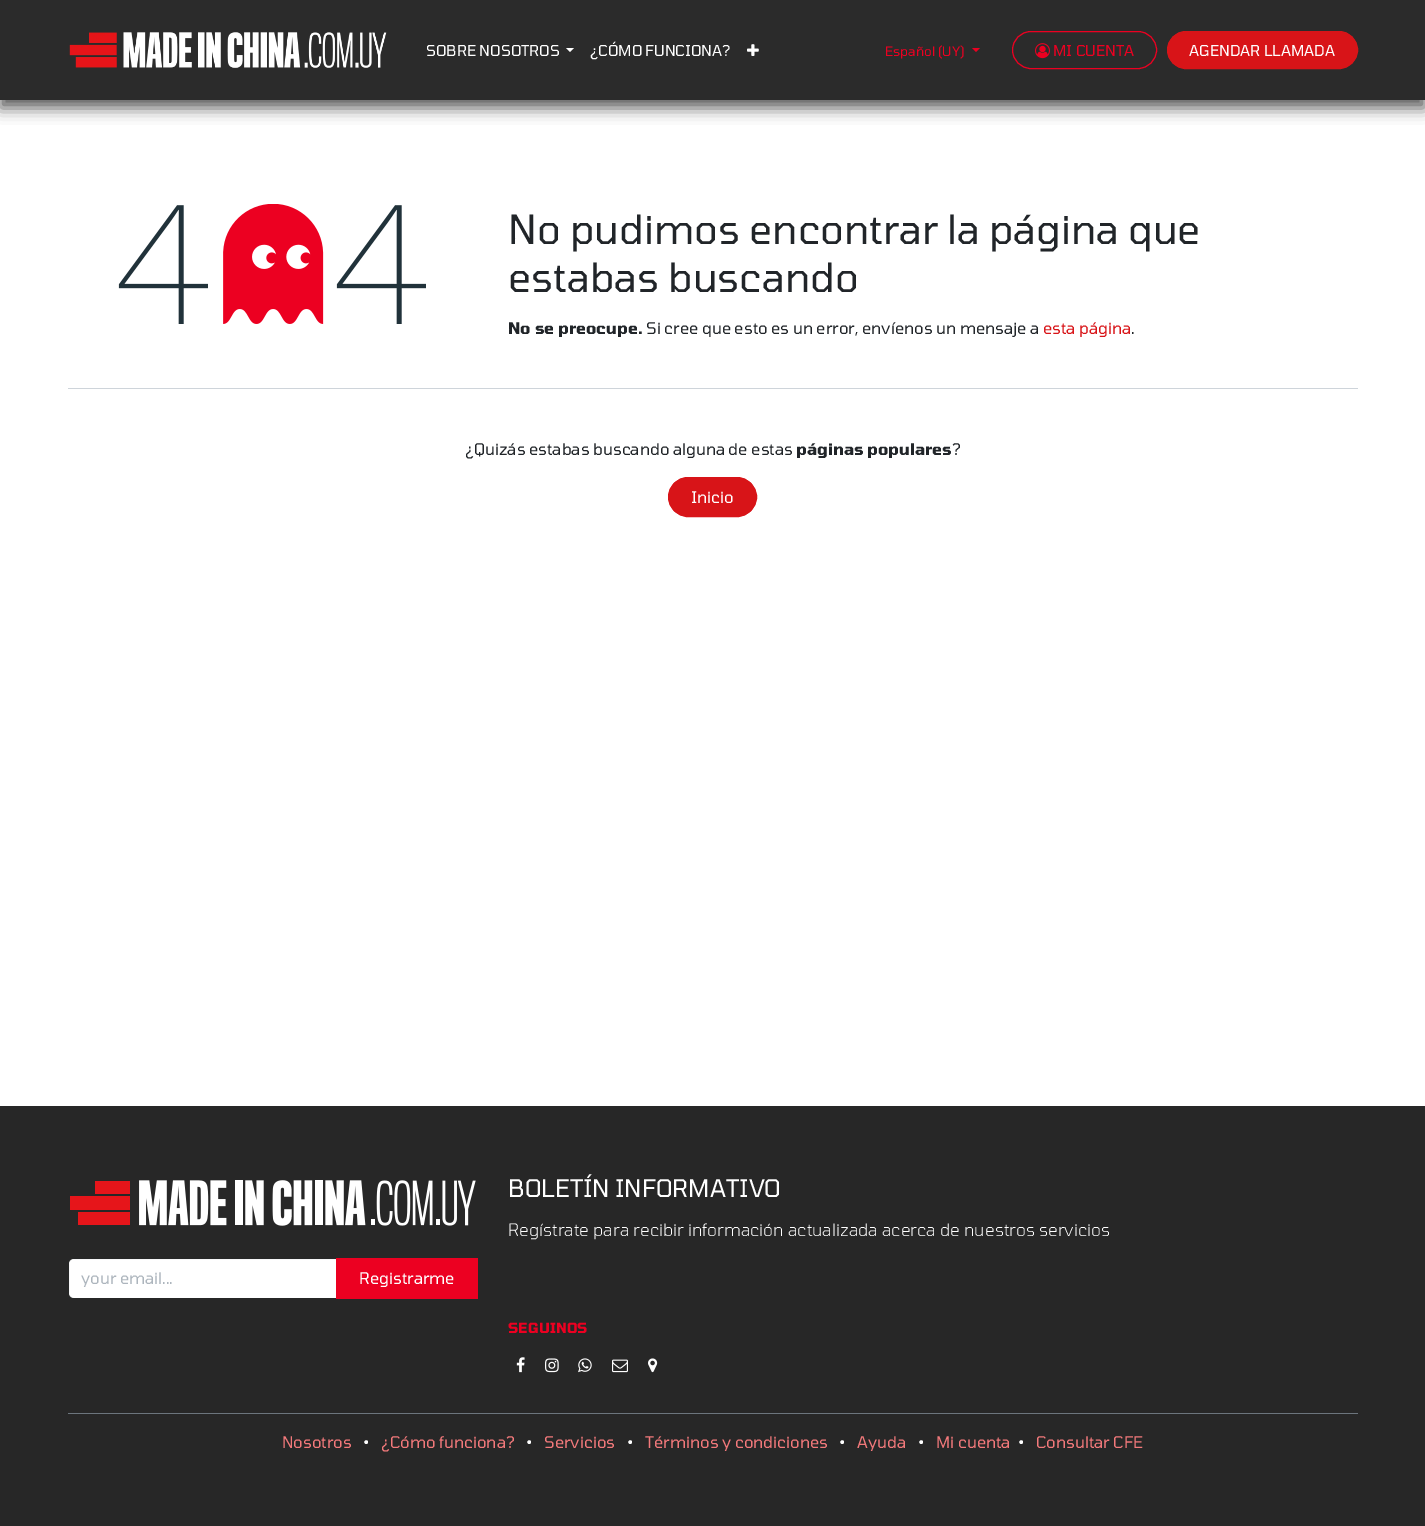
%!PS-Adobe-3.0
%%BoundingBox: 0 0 1425 1526
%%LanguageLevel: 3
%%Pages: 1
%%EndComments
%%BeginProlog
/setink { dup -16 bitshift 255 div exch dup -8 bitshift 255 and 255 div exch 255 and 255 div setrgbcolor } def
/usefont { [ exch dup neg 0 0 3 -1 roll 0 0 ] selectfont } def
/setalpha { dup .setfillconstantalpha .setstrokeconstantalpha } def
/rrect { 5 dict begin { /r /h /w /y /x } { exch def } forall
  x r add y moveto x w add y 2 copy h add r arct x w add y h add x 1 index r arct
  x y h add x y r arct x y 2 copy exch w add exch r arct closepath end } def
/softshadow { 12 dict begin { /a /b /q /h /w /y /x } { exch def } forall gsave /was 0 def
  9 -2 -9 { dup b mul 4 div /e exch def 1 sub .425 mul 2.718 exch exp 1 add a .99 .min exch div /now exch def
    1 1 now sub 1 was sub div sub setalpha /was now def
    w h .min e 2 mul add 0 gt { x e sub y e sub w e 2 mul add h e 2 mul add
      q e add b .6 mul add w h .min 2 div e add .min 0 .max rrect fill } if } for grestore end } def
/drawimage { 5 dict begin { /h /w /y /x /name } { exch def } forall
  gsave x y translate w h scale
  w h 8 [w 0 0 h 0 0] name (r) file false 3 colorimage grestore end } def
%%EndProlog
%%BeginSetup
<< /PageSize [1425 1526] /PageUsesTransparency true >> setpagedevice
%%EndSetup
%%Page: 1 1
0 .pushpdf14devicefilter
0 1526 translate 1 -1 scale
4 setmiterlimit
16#FFFFFF setink
0 0 1425 1526 rectfill
16#000000 setink
0 8 1425 100 0 7.5 0.64 softshadow
16#2B2B2B setink
0 0 1425 100 rectfill
(img1.raw) 69 32 318 36 drawimage
/Tomorrow-Regular 15 usefont
16#FFFFFF setink
426 56 moveto (SOBRE NOSOTROS) show
566 48 moveto 574 48 lineto 570 52 lineto closepath fill
590 56 moveto (¿CÓMO FUNCIONA?) show
(img2.raw) 747 44 12 12 drawimage
/Tomorrow-Regular 13 usefont
16#EC0021 setink
885 56 moveto (Español \(UY\)) show
972 48 moveto 980 48 lineto 976 52 lineto closepath fill
1012.5 31.5 144 37 18.5 rrect stroke
(img3.raw) 1035 43 15 16 drawimage
/Tomorrow-Regular 15 usefont
1053 56 moveto (MI CUENTA) show
16#D81418 setink
1167.5 31.5 190 37 18.5 rrect gsave fill grestore
stroke
16#FFFFFF setink
1189 56 moveto (AGENDAR LLAMADA) show
(img4.raw) 118 204 308 120 drawimage
/Tomorrow-Regular 40 usefont
16#212529 setink
508 244 moveto (No pudimos encontrar la página que) show
508 292 moveto (estabas buscando) show
/Tomorrow-Bold 16 usefont
508 334 moveto (No se preocupe.) show
/Tomorrow-Regular 16 usefont
646 334 moveto (Si cree que esto es un error, envíenos un mensaje a) show
16#D81418 setink
1043 334 moveto (esta página) show
16#212529 setink
1131 334 moveto (.) show
16#CED4DA setink
68 388 1290 1 rectfill
16#212529 setink
465 455 moveto (¿Quizás estabas buscando alguna de estas) show
/Tomorrow-Bold 16 usefont
796 455 moveto (páginas populares) show
/Tomorrow-Regular 16 usefont
952 455 moveto (?) show
16#D81418 setink
668.5 477.5 88 39 19.5 rrect gsave fill grestore
stroke
16#FFFFFF setink
691 503 moveto (Inicio) show
16#272727 setink
0 1106 1425 420 rectfill
/Tomorrow-Regular 24 usefont
16#FFFFFF setink
508 1197 moveto (BOLETÍN INFORMATIVO) show
/Tomorrow-Light 17 usefont
508 1236 moveto (Regístrate para recibir información actualizada acerca de nuestros servicios) show
(img5.raw) 70 1180 406 46 drawimage
74 1259 moveto 336 1259 lineto 336 1298 lineto 74 1298 lineto 71 1298 69 1296 69 1293 curveto 69 1264 lineto 69 1261 71 1259 74 1259 curveto closepath fill
0.15 setalpha
16#212529 setink
74 1258.5 moveto 336.5 1258.5 lineto 336.5 1298.5 lineto 74 1298.5 lineto 71 1298.5 68.5 1296 68.5 1293 curveto 68.5 1264 lineto 68.5 1261 71 1258.5 74 1258.5 curveto closepath stroke
/Tomorrow-Regular 16 usefont
1 setalpha
16#ADB5BD setink
81 1284 moveto (your email...) show
16#EC0021 setink
336 1258 142 41 rectfill
16#FFFFFF setink
359 1284 moveto (Registrarme) show
/Tomorrow-Bold 14 usefont
16#EC0021 setink
508 1333 moveto (SEGUINOS) show
(img6.raw) 516 1357 9 16 drawimage
(img7.raw) 545 1358 14 15 drawimage
(img8.raw) 578 1358 14 15 drawimage
(img9.raw) 612 1359 16 14 drawimage
(img10.raw) 648 1358 10 15 drawimage
16#6C757D setink
68 1413 1290 1 rectfill
/Tomorrow-Regular 16 usefont
16#F3797B setink
282 1448 moveto (Nosotros) show
16#FFFFFF setink
363 1448 moveto (•) show
16#F3797B setink
381 1448 moveto (¿Cómo funciona?) show
16#FFFFFF setink
526 1448 moveto (•) show
16#F3797B setink
544 1448 moveto (Servicios) show
16#FFFFFF setink
627 1448 moveto (•) show
16#F3797B setink
645 1448 moveto (Términos y condiciones) show
16#FFFFFF setink
839 1448 moveto (•) show
16#F3797B setink
857 1448 moveto (Ayuda) show
16#FFFFFF setink
918 1448 moveto (•) show
16#F3797B setink
936 1448 moveto (Mi cuenta) show
16#FFFFFF setink
1018 1448 moveto (•) show
16#F3797B setink
1036 1448 moveto (Consultar CFE) show
.poppdf14devicefilter showpage
%%EOF
